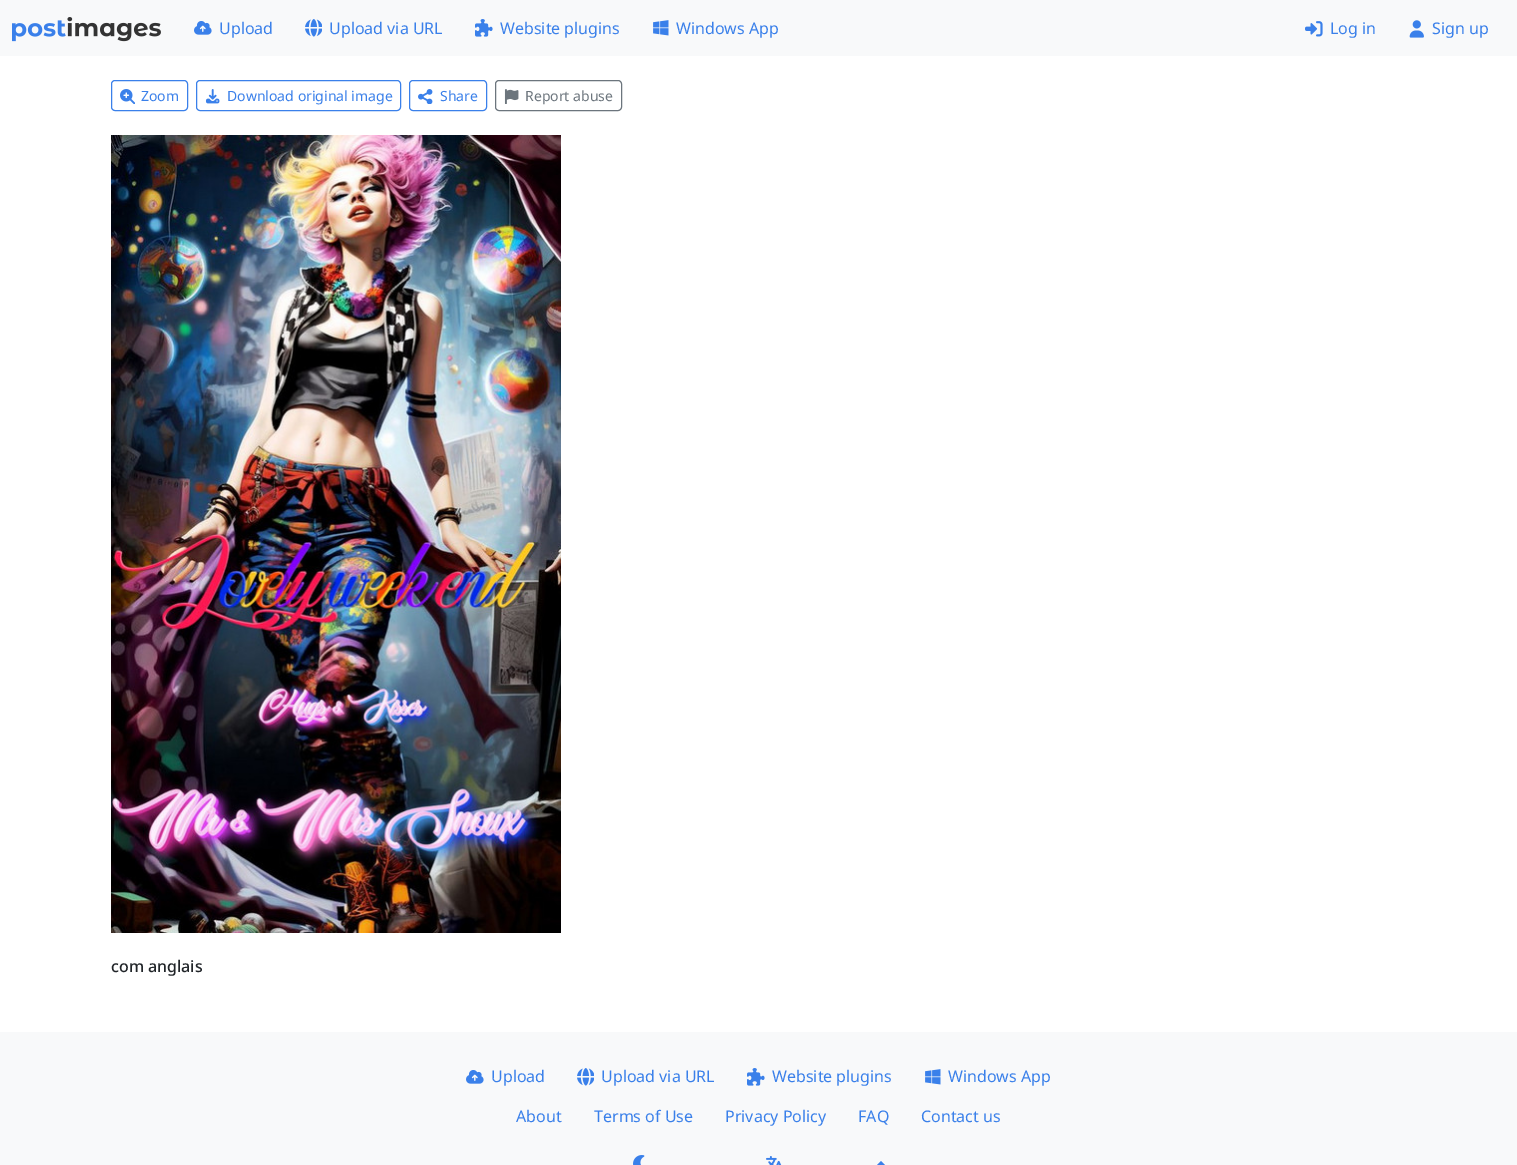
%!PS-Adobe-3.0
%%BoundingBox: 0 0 1517 1165
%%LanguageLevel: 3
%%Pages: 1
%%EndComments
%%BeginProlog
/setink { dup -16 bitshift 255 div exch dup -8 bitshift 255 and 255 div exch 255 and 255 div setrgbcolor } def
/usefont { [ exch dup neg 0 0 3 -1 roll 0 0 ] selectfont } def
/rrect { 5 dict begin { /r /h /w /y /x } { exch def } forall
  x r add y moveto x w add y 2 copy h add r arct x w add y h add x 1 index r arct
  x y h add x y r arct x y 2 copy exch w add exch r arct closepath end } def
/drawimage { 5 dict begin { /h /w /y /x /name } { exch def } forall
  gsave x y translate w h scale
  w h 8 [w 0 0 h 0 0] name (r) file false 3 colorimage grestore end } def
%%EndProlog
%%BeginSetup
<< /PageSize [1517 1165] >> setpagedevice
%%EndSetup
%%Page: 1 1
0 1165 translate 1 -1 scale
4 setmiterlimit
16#FFFFFF setink
0 0 1517 1165 rectfill
16#F8F9FA setink
0 0 1517 56 rectfill
(img1.raw) 12 17 149 25 drawimage
(img2.raw) 194 21 18 14 drawimage
/NotoSans-Regular 16 usefont
16#3A80EA setink
219 34 moveto (Upload) show
(img3.raw) 305 19 17 18 drawimage
329 34 moveto (Upload via URL) show
(img4.raw) 475 19 18 18 drawimage
500 34 moveto (Website plugins) show
(img5.raw) 653 20 16 16 drawimage
676 34 moveto (Windows App) show
(img6.raw) 1305 21 18 16 drawimage
1330 34 moveto (Log in) show
(img7.raw) 1409 20 15 18 drawimage
1432 34 moveto (Sign up) show
111.5 80.5 76 30 3.5 rrect stroke
(img8.raw) 120 89 15 15 drawimage
/NotoSans-Regular 14 usefont
141 101 moveto (Zoom) show
196.5 80.5 204 30 3.5 rrect stroke
(img9.raw) 205 89 15 15 drawimage
227 101 moveto (Download original image) show
409.5 80.5 77 30 3.5 rrect stroke
(img10.raw) 418 89 15 15 drawimage
440 101 moveto (Share) show
16#6C757D setink
495.5 80.5 126 30 3.5 rrect stroke
(img11.raw) 504 89 15 15 drawimage
525 101 moveto (Report abuse) show
(img12.raw) 111 135 450 798 drawimage
/NotoSans-Medium 16 usefont
16#212529 setink
111 972 moveto (com anglais) show
16#F8F9FA setink
0 1032 1517 133 rectfill
(img2.raw) 466 1070 18 14 drawimage
/NotoSans-Regular 16 usefont
16#3A80EA setink
491 1082 moveto (Upload) show
(img3.raw) 577 1068 17 18 drawimage
601 1082 moveto (Upload via URL) show
(img4.raw) 747 1068 18 18 drawimage
772 1082 moveto (Website plugins) show
(img5.raw) 925 1069 16 16 drawimage
[
    [(Windows App) 948 1082]
    [(About) 516 1122]
    [(Terms of Use) 594 1122]
    [(Privacy Policy) 725 1122]
    [(FAQ) 858 1122]
    [(Contact us) 921 1122]
] { aload pop moveto show } forall
(img13.raw) 633 1155 12 10 drawimage
(img14.raw) 766 1156 16 9 drawimage
885 1165 moveto 877 1165 lineto 881 1161 lineto closepath fill
showpage
%%EOF
